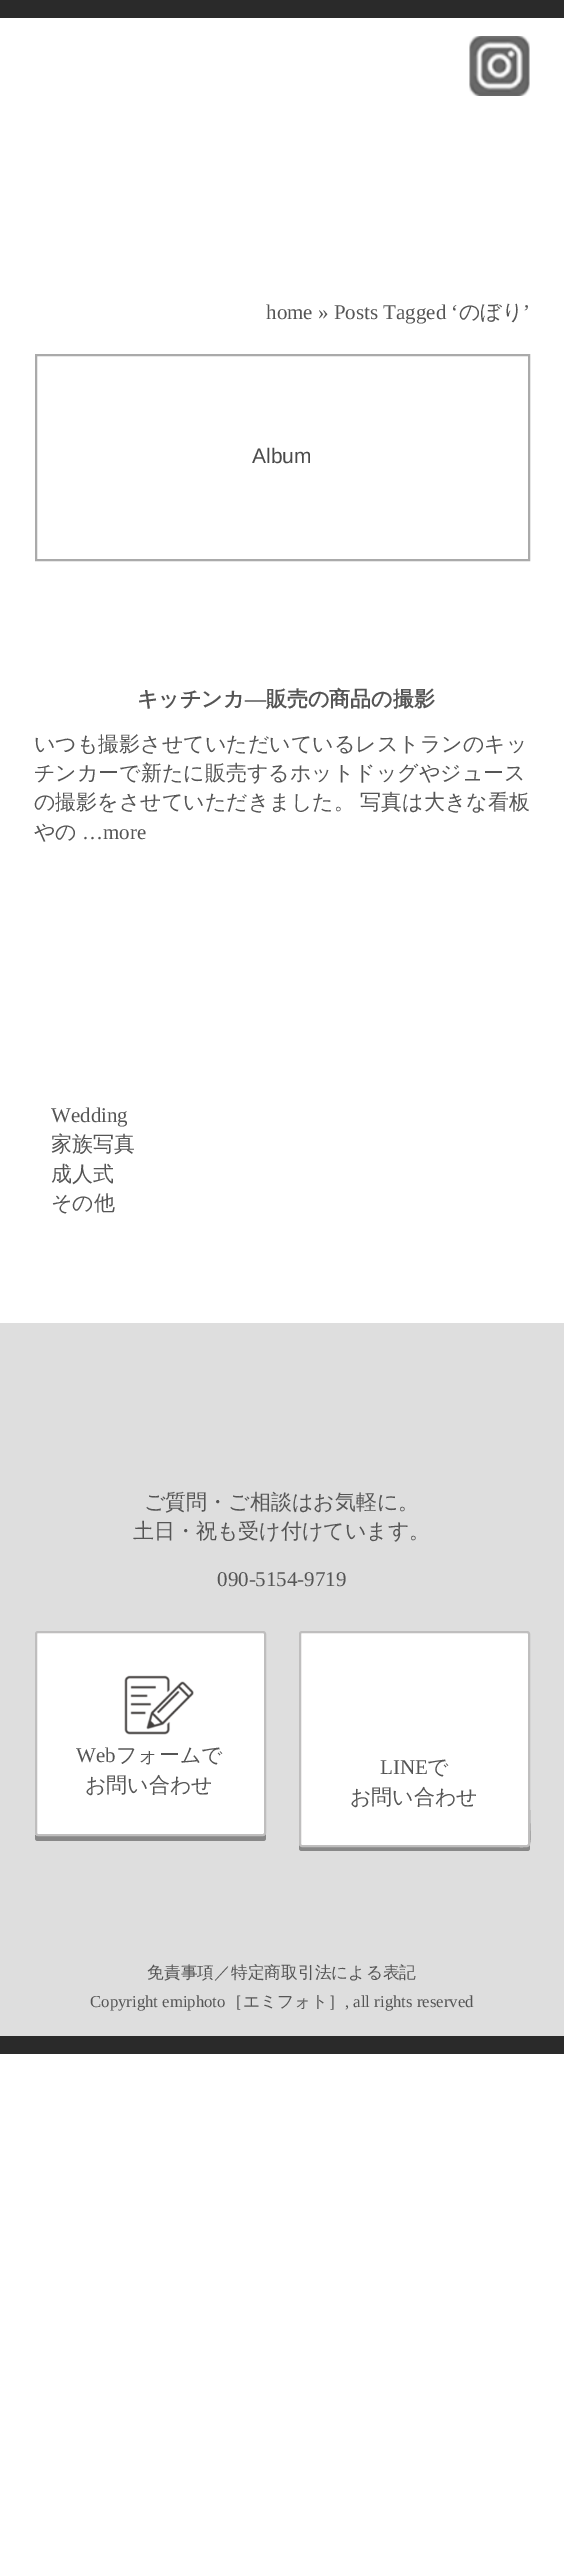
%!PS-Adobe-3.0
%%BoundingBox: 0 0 564 2555
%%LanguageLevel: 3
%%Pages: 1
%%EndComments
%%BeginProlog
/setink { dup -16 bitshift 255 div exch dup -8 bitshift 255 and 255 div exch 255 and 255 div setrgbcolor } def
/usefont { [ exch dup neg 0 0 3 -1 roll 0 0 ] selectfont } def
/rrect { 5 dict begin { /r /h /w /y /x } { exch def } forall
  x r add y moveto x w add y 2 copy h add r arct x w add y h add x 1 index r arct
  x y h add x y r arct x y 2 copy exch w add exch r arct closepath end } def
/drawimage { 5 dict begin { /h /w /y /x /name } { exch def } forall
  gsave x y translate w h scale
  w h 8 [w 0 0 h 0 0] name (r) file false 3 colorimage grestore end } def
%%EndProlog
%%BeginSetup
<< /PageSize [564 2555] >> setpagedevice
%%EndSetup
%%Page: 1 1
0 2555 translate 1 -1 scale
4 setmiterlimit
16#FFFFFF setink
0 0 564 2555 rectfill
16#2A2A2A setink
0 0 564 18 rectfill
(img1.raw) 469 36 61 60 drawimage
/LiberationSerif-Regular 21 usefont
16#555555 setink
266 319 moveto (home » Posts Tagged ‘) show
/WenQuanYiZenHei-Medium 21 usefont
459 319 moveto (のぼり) show
/LiberationSerif-Regular 21 usefont
523 319 moveto (’) show
16#AAAAAA setink
2 setlinewidth
36 355 493 205 rectstroke
/LiberationSans-Regular 21 usefont
16#4A4A4A setink
252 463 moveto (Album) show
/WenQuanYiZenHei-Bold 21 usefont
16#555555 setink
137 706 moveto (キッチンカ) show
/LiberationSerif-Bold 21 usefont
245 706 moveto (―) show
/WenQuanYiZenHei-Bold 21 usefont
266 706 moveto (販売の商品の撮影) show
/WenQuanYiZenHei-Medium 21 usefont
34 751 moveto (いつも撮影させていただいているレストランのキッ) show
34 780 moveto (チンカーで新たに販売するホットドッグやジュース) show
34 809 moveto -1 0 32 (の撮影をさせていただきました。 写真は大きな看板) widthshow
34 839 moveto (やの) show
/LiberationSerif-Regular 21 usefont
82 839 moveto (…more) show
51 1122 moveto (Wedding) show
/WenQuanYiZenHei-Medium 21 usefont
[
    [(家族写真) 51 1151]
    [(成人式) 51 1181]
    [(その他) 51 1210]
] { aload pop moveto show } forall
16#DEDEDE setink
0 1323 564 713 rectfill
16#555555 setink
144 1509 moveto (ご質問・ご相談はお気軽に。) show
133 1538 moveto (土日・祝も受け付けています。) show
/LiberationSerif-Regular 21 usefont
217 1586 moveto (090-5154-9719) show
16#888888 setink
35 1835 moveto 35 1838 lineto 35 1840 36 1841 38 1841 curveto 263 1841 lineto 265 1841 266 1840 266 1838 curveto 266 1638 lineto 266 1636 lineto 266 1833 lineto 266 1835 264 1836 262 1836 curveto 38 1836 lineto 36 1836 36 1835 35 1835 curveto closepath fill
16#FFFFFF setink
36 1632 229 203 2 rrect gsave fill grestore
16#BFBEBE setink
stroke
(img2.raw) 124 1675 70 60 drawimage
16#555555 setink
76 1762 moveto (Web) show
/WenQuanYiZenHei-Medium 21 usefont
116 1762 moveto (フォームで) show
85 1792 moveto (お問い合わせ) show
16#888888 setink
299 1845 moveto 299 1848 lineto 299 1850 300 1851 302 1851 curveto 527 1851 lineto 529 1851 530 1850 530 1848 curveto 530 1638 lineto 530 1636 lineto 530 1809 lineto 530 1858 539 1846 489 1846 curveto 301 1846 lineto closepath fill
16#FFFFFF setink
300 1632 229 214 2 rrect gsave fill grestore
16#BFBEBE setink
stroke
/LiberationSerif-Regular 21 usefont
16#555555 setink
380 1774 moveto (LINE) show
/WenQuanYiZenHei-Medium 21 usefont
427 1774 moveto (で) show
350 1804 moveto (お問い合わせ) show
/WenQuanYiZenHei-Medium 16.75 usefont
147 1978 moveto (免責事項／特定商取引法による表記) show
/LiberationSerif-Regular 16.75 usefont
90 2007 moveto (Copyright emiphoto) show
/WenQuanYiZenHei-Medium 16.75 usefont
226 2007 moveto (［エミフォト］) show
/LiberationSerif-Regular 16.75 usefont
345 2007 moveto (, all rights reserved) show
16#2A2A2A setink
0 2036 564 18 rectfill
showpage
%%EOF
